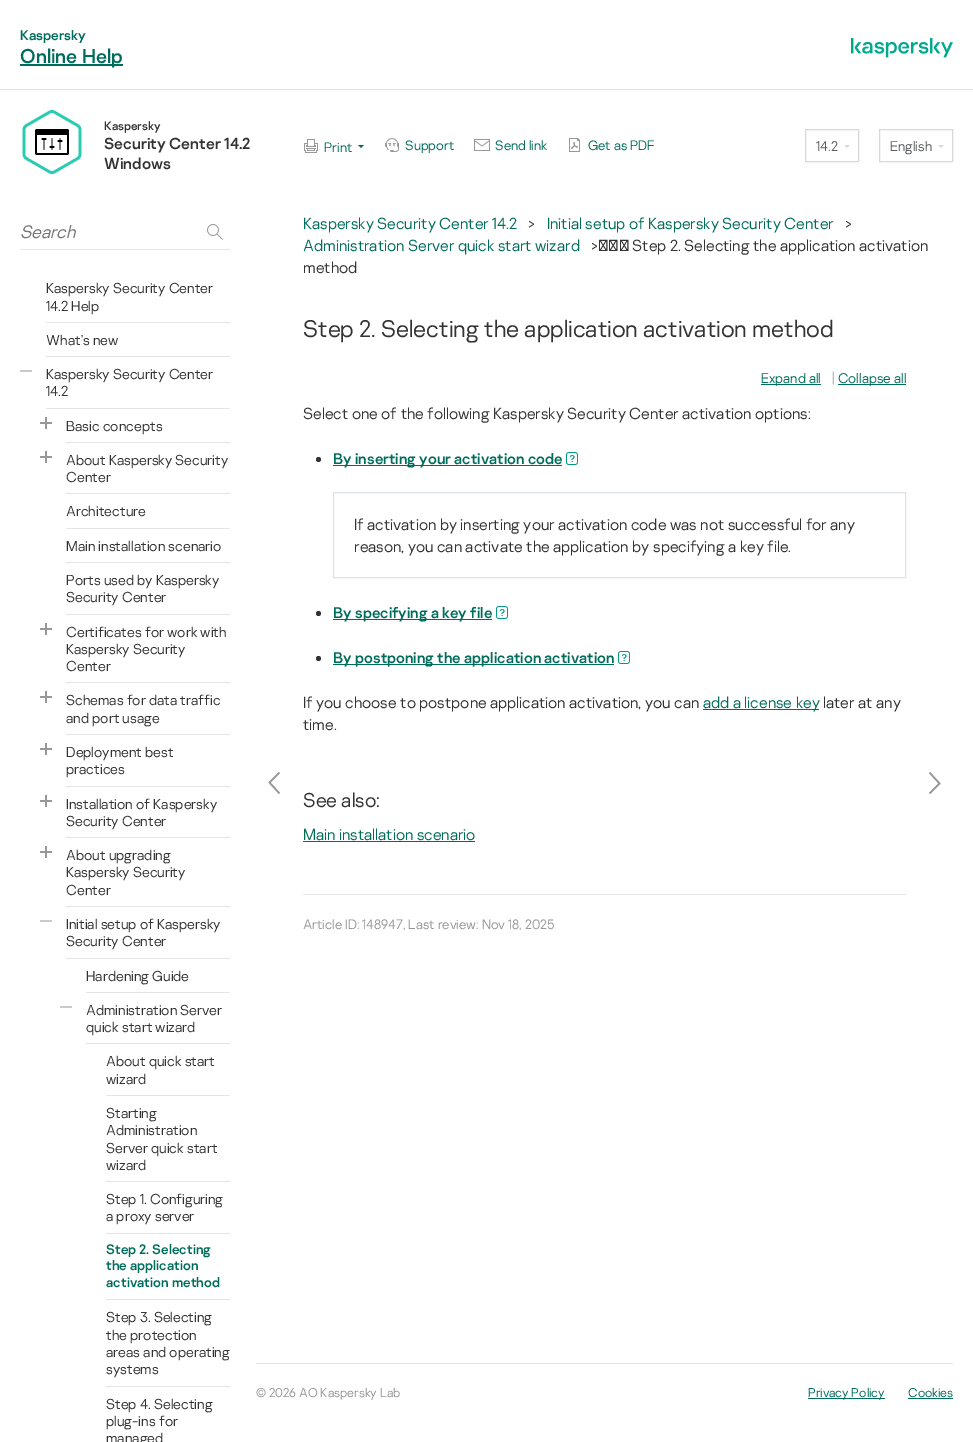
%!PS-Adobe-3.0
%%BoundingBox: 0 0 973 1442
%%LanguageLevel: 3
%%Pages: 1
%%EndComments
%%BeginProlog
/setink { dup -16 bitshift 255 div exch dup -8 bitshift 255 and 255 div exch 255 and 255 div setrgbcolor } def
/usefont { [ exch dup neg 0 0 3 -1 roll 0 0 ] selectfont } def
/disc { newpath 0 360 arc closepath } def
/drawimage { 5 dict begin { /h /w /y /x /name } { exch def } forall
  gsave x y translate w h scale
  w h 8 [w 0 0 h 0 0] name (r) file false 3 colorimage grestore end } def
%%EndProlog
%%BeginSetup
<< /PageSize [973 1442] >> setpagedevice
%%EndSetup
%%Page: 1 1
0 1442 translate 1 -1 scale
4 setmiterlimit
16#FFFFFF setink
0 0 973 1442 rectfill
16#E0E0E0 setink
0 89 973 1 rectfill
/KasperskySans-Regular 14 usefont
16#006D5C setink
20 40 moveto (Kaspersky) show
20 64 103 2 rectfill
/KasperskySans-Regular 20 usefont
20 63 moveto (Online Help) show
(img1.raw) 851 38 102 20 drawimage
(img2.raw) 22 110 60 64 drawimage
/KasperskySans-Regular 12 usefont
16#333333 setink
104 130 moveto (Kaspersky) show
/KasperskySans-Regular 16 usefont
104 149 moveto (Security Center 14.2) show
104 169 moveto (Windows) show
(img3.raw) 304 139 14 14 drawimage
/KasperskySans-Light 13.6 usefont
16#006D5C setink
324 152 moveto (Print) show
358 145 moveto 364 145 lineto 361 148 lineto closepath fill
(img4.raw) 385 138 14 14 drawimage
405 150 moveto (Support) show
(img5.raw) 474 139 16 12 drawimage
495 150 moveto (Send link) show
(img6.raw) 569 138 11 14 drawimage
588 150 moveto (Get as PDF) show
16#D8D8D8 setink
805.5 129.5 53 32 rectstroke
/KasperskySans-Light 14 usefont
16#5C5F61 setink
816 151 moveto (14.2) show
(img7.raw) 844 145 6 3 drawimage
16#D8D8D8 setink
879.5 129.5 73 32 rectstroke
16#5C5F61 setink
890 151 moveto (English) show
(img7.raw) 938 145 6 3 drawimage
16#E5E5E5 setink
20 249 210 1 rectfill
/KasperskySans-LightItalic 18 usefont
16#757575 setink
20 238 moveto (Search) show
(img8.raw) 207 224 16 16 drawimage
16#E5E5E5 setink
46 322 184 1 rectfill
/KasperskySans-Light 14.4 usefont
16#333333 setink
46 293 moveto (Kaspersky Security Center) show
46 311 moveto (14.2 Help) show
16#E5E5E5 setink
46 356 184 1 rectfill
16#333333 setink
46 345 moveto (What's new) show
16#CACACA setink
20 370 12 2 rectfill
16#E5E5E5 setink
46 408 184 1 rectfill
16#333333 setink
46 379 moveto (Kaspersky Security Center) show
46 396 moveto (14.2) show
(img9.raw) 40 417 12 12 drawimage
16#E5E5E5 setink
66 442 164 1 rectfill
16#333333 setink
66 431 moveto (Basic concepts) show
(img9.raw) 40 451 12 12 drawimage
16#E5E5E5 setink
66 493 164 1 rectfill
16#333333 setink
66 465 moveto (About Kaspersky Security) show
66 482 moveto (Center) show
16#E5E5E5 setink
66 528 164 1 rectfill
16#333333 setink
66 516 moveto (Architecture) show
16#E5E5E5 setink
66 562 164 1 rectfill
16#333333 setink
66 551 moveto (Main installation scenario) show
16#E5E5E5 setink
66 614 164 1 rectfill
16#333333 setink
66 585 moveto (Ports used by Kaspersky) show
66 602 moveto (Security Center) show
(img9.raw) 40 623 12 12 drawimage
16#E5E5E5 setink
66 682 164 1 rectfill
16#333333 setink
[
    [(Certificates for work with) 66 637]
    [(Kaspersky Security) 66 654]
    [(Center) 66 671]
] { aload pop moveto show } forall
(img9.raw) 40 691 12 12 drawimage
16#E5E5E5 setink
66 734 164 1 rectfill
16#333333 setink
66 705 moveto (Schemas for data traffic) show
66 723 moveto (and port usage) show
(img9.raw) 40 743 12 12 drawimage
16#E5E5E5 setink
66 786 164 1 rectfill
16#333333 setink
66 757 moveto (Deployment best) show
66 774 moveto (practices) show
(img9.raw) 40 795 12 12 drawimage
16#E5E5E5 setink
66 837 164 1 rectfill
16#333333 setink
66 809 moveto (Installation of Kaspersky) show
66 826 moveto (Security Center) show
(img9.raw) 40 846 12 12 drawimage
16#E5E5E5 setink
66 906 164 1 rectfill
16#333333 setink
[
    [(About upgrading) 66 860]
    [(Kaspersky Security) 66 877]
    [(Center) 66 895]
] { aload pop moveto show } forall
16#CACACA setink
40 920 12 2 rectfill
16#E5E5E5 setink
66 958 164 1 rectfill
16#333333 setink
66 929 moveto (Initial setup of Kaspersky) show
66 946 moveto (Security Center) show
16#E5E5E5 setink
86 992 144 1 rectfill
16#333333 setink
86 981 moveto (Hardening Guide) show
16#CACACA setink
60 1006 12 2 rectfill
16#E5E5E5 setink
86 1043 144 1 rectfill
16#333333 setink
86 1015 moveto (Administration Server) show
86 1032 moveto (quick start wizard) show
16#E5E5E5 setink
106 1095 124 1 rectfill
16#333333 setink
106 1066 moveto (About quick start) show
106 1084 moveto (wizard) show
16#E5E5E5 setink
106 1181 124 1 rectfill
16#333333 setink
[
    [(Starting) 106 1118]
    [(Administration) 106 1135]
    [(Server quick start) 106 1153]
    [(wizard) 106 1170]
] { aload pop moveto show } forall
16#E5E5E5 setink
106 1233 124 1 rectfill
16#333333 setink
106 1204 moveto (Step 1. Configuring) show
106 1221 moveto (a proxy server) show
16#E5E5E5 setink
106 1299 124 1 rectfill
/KasperskySans-Regular 13.75 usefont
16#006D5C setink
[
    [(Step 2. Selecting) 106 1254]
    [(the application) 106 1270]
    [(activation method) 106 1287]
] { aload pop moveto show } forall
16#E5E5E5 setink
106 1386 124 1 rectfill
/KasperskySans-Light 14.4 usefont
16#333333 setink
[
    [(Step 3. Selecting) 106 1322]
    [(the protection) 106 1340]
    [(areas and operating) 106 1357]
    [(systems) 106 1374]
    [(Step 4. Selecting) 106 1409]
    [(plug-ins for) 106 1426]
    [(managed) 106 1443]
] { aload pop moveto show } forall
(img10.raw) 268 772 13 22 drawimage
/KasperskySans-Light 16 usefont
16#006D5C setink
303 229 moveto (Kaspersky Security Center 14.2) show
16#333333 setink
528 229 moveto (>) show
16#006D5C setink
547 229 moveto (Initial setup of Kaspersky Security Center) show
16#333333 setink
845 229 moveto (>) show
16#006D5C setink
303 251 moveto (Administration Server quick start wizard) show
16#333333 setink
591 251 moveto (>  Step 2. Selecting the application activation) show
303 273 moveto (method) show
/KasperskySans-Light 24 usefont
303 337 moveto (Step 2. Selecting the application activation method) show
16#006D5C setink
761 384 60 1 rectfill
/KasperskySans-Light 14 usefont
761 383 moveto (Expand all) show
16#9EA8AD setink
832 383 moveto (|) show
16#006D5C setink
838 384 68 1 rectfill
838 383 moveto (Collapse all) show
/KasperskySans-Light 16 usefont
16#333333 setink
303 419 moveto (Select one of the following Kaspersky Security Center activation options:) show
318.5 459.5 2.5 disc fill
16#006D5C setink
333 465 229 1 rectfill
/KasperskySans-Regular 15.4 usefont
333 464 moveto (By inserting your activation code) show
(img11.raw) 566 452 12 13 drawimage
16#DCE2E5 setink
333.5 492.5 572 85 rectstroke
/KasperskySans-Light 16 usefont
16#333333 setink
354 530 moveto (If activation by inserting your activation code was not successful for any) show
354 552 moveto (reason, you can activate the application by specifying a key file.) show
318.5 613.5 2.5 disc fill
16#006D5C setink
333 619 159 1 rectfill
/KasperskySans-Regular 15.4 usefont
333 618 moveto (By specifying a key file) show
(img11.raw) 496 606 12 13 drawimage
16#333333 setink
318.5 658.5 2.5 disc fill
16#006D5C setink
333 664 281 1 rectfill
333 663 moveto (By postponing the application activation) show
(img11.raw) 618 651 12 13 drawimage
/KasperskySans-Light 16 usefont
16#333333 setink
303 708 moveto (If you choose to postpone application activation, you can) show
16#006D5C setink
703 709 116 1 rectfill
703 708 moveto (add a license key) show
16#333333 setink
823 708 moveto (later at any) show
303 730 moveto (time.) show
/KasperskySans-Light 20 usefont
303 807 moveto (See also:) show
/KasperskySans-Light 16 usefont
16#006D5C setink
303 840 moveto (Main installation scenario) show
303 841 172 1 rectfill
16#E5E5E5 setink
303 894 603 1 rectfill
/KasperskySans-Light 13.6 usefont
16#979797 setink
303 929 moveto (Article ID: 148947, Last review: Nov 18, 2025) show
(img12.raw) 928 772 13 22 drawimage
16#E4E4E4 setink
256 1363 697 1 rectfill
/KasperskySans-Light 12.75 usefont
16#979797 setink
256 1397 moveto (© 2026 AO Kaspersky Lab) show
16#006D5C setink
808 1398 77 1 rectfill
808 1397 moveto (Privacy Policy) show
908 1397 moveto (Cookies) show
908 1398 45 1 rectfill
showpage
%%EOF
